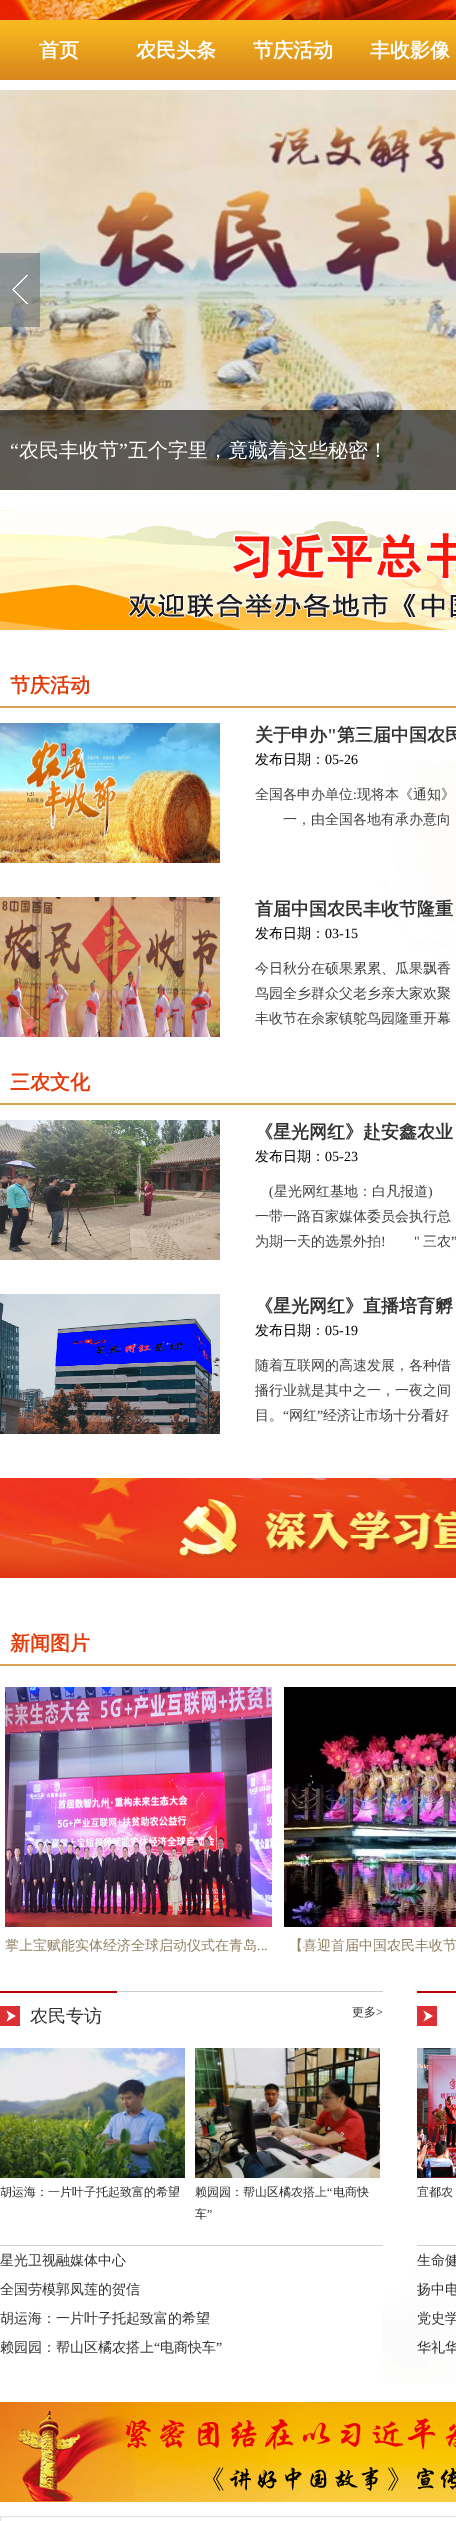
%!PS-Adobe-3.0
%%BoundingBox: 0 0 456 2521
%%LanguageLevel: 3
%%Pages: 1
%%EndComments
%%BeginProlog
/setink { dup -16 bitshift 255 div exch dup -8 bitshift 255 and 255 div exch 255 and 255 div setrgbcolor } def
/usefont { [ exch dup neg 0 0 3 -1 roll 0 0 ] selectfont } def
/setalpha { dup .setfillconstantalpha .setstrokeconstantalpha } def
/drawimage { 5 dict begin { /h /w /y /x /name } { exch def } forall
  gsave x y translate w h scale
  w h 8 [w 0 0 h 0 0] name (r) file false 3 colorimage grestore end } def
%%EndProlog
%%BeginSetup
<< /PageSize [456 2521] /PageUsesTransparency true >> setpagedevice
%%EndSetup
%%Page: 1 1
0 .pushpdf14devicefilter
0 2521 translate 1 -1 scale
4 setmiterlimit
16#FFFFFF setink
0 0 456 2521 rectfill
(img1.raw) 383 761 73 1622 drawimage
(img2.raw) 0 0 456 20 drawimage
(img3.raw) 0 20 456 60 drawimage
/WenQuanYiZenHei-Bold 20 usefont
[
    [(首页) 39 57]
    [(农民头条) 136 57]
    [(节庆活动) 253 57]
    [(丰收影像) 370 57]
] { aload pop moveto show } forall
(img5.raw) 0 90 456 400 drawimage
(img4.raw) 0 253 40 74 drawimage
0.6 setalpha
16#000000 setink
0 410 456 80 rectfill
/LiberationSerif-Regular 20 usefont
1 setalpha
16#FFFFFF setink
10 457 moveto (“) show
/WenQuanYiZenHei-Medium 20 usefont
19 457 moveto (农民丰收节) show
/LiberationSerif-Regular 20 usefont
119 457 moveto (”) show
/WenQuanYiZenHei-Medium 20 usefont
128 457 moveto (五个字里，竟藏着这些秘密！) show
(img6.raw) 0 510 456 120 drawimage
16#DAA056 setink
0 706 456 2 rectfill
/WenQuanYiZenHei-Bold 20 usefont
16#E23D0D setink
10 692 moveto (节庆活动) show
(img7.raw) 0 723 220 140 drawimage
/WenQuanYiZenHei-Bold 18 usefont
16#333333 setink
255 741 moveto (关于申办) show
/LiberationSerif-Bold 18 usefont
327 741 moveto (") show
/WenQuanYiZenHei-Bold 18 usefont
337 741 moveto (第三届中国农民) show
/WenQuanYiZenHei-Medium 14 usefont
16#000000 setink
255 764 moveto (发布日期：) show
/LiberationSerif-Regular 14 usefont
325 764 moveto (05-26) show
/WenQuanYiZenHei-Medium 14 usefont
16#404040 setink
255 799 moveto (全国各申办单位) show
/LiberationSerif-Regular 14 usefont
353 799 moveto (:) show
/WenQuanYiZenHei-Medium 14 usefont
357 799 moveto (现将本《通知》) show
283 824 moveto (一，由全国各地有承办意向) show
(img8.raw) 0 897 220 140 drawimage
/WenQuanYiZenHei-Bold 18 usefont
16#333333 setink
255 915 moveto (首届中国农民丰收节隆重) show
/WenQuanYiZenHei-Medium 14 usefont
16#000000 setink
255 938 moveto (发布日期：) show
/LiberationSerif-Regular 14 usefont
325 938 moveto (03-15) show
/WenQuanYiZenHei-Medium 14 usefont
16#404040 setink
[
    [(今日秋分在硕果累累、瓜果飘香) 255 973]
    [(鸟园全乡群众父老乡亲大家欢聚) 255 998]
    [(丰收节在佘家镇鸵鸟园隆重开幕) 255 1023]
] { aload pop moveto show } forall
16#DAA056 setink
0 1103 456 2 rectfill
/WenQuanYiZenHei-Bold 20 usefont
16#E23D0D setink
10 1089 moveto (三农文化) show
(img9.raw) 0 1120 220 140 drawimage
/WenQuanYiZenHei-Bold 18 usefont
16#333333 setink
255 1138 moveto (《星光网红》赴安鑫农业) show
/WenQuanYiZenHei-Medium 14 usefont
16#000000 setink
255 1161 moveto (发布日期：) show
/LiberationSerif-Regular 14 usefont
325 1161 moveto (05-23) show
16#404040 setink
269 1196 moveto (\() show
/WenQuanYiZenHei-Medium 14 usefont
274 1196 moveto (星光网红基地：白凡报道) show
/LiberationSerif-Regular 14 usefont
428 1196 moveto (\)) show
/WenQuanYiZenHei-Medium 14 usefont
255 1221 moveto (一带一路百家媒体委员会执行总) show
255 1246 moveto (为期一天的选景外拍) show
/LiberationSerif-Regular 14 usefont
381 1246 moveto (!) show
414 1246 moveto (") show
/WenQuanYiZenHei-Medium 14 usefont
423 1246 moveto (三农) show
/LiberationSerif-Regular 14 usefont
451 1246 moveto (”) show
(img10.raw) 0 1294 220 140 drawimage
/WenQuanYiZenHei-Bold 18 usefont
16#333333 setink
255 1312 moveto (《星光网红》直播培育孵) show
/WenQuanYiZenHei-Medium 14 usefont
16#000000 setink
255 1335 moveto (发布日期：) show
/LiberationSerif-Regular 14 usefont
325 1335 moveto (05-19) show
/WenQuanYiZenHei-Medium 14 usefont
16#404040 setink
[
    [(随着互联网的高速发展，各种借) 255 1370]
    [(播行业就是其中之一，一夜之间) 255 1395]
    [(目。) 255 1420]
] { aload pop moveto show } forall
/LiberationSerif-Regular 14 usefont
283 1420 moveto (“) show
/WenQuanYiZenHei-Medium 14 usefont
289 1420 moveto (网红) show
/LiberationSerif-Regular 14 usefont
317 1420 moveto (”) show
/WenQuanYiZenHei-Medium 14 usefont
323 1420 moveto (经济让市场十分看好) show
(img11.raw) 0 1478 456 100 drawimage
16#DAA056 setink
0 1664 456 2 rectfill
/WenQuanYiZenHei-Bold 20 usefont
16#E23D0D setink
10 1650 moveto (新闻图片) show
(img12.raw) 5 1687 267 240 drawimage
/WenQuanYiZenHei-Medium 14 usefont
16#907F60 setink
5 1950 moveto (掌上宝赋能实体经济全球启动仪式在青岛) show
/LiberationSerif-Regular 14 usefont
257 1950 moveto (...) show
(img13.raw) 284 1687 172 240 drawimage
/WenQuanYiZenHei-Medium 14 usefont
289 1950 moveto (【喜迎首届中国农民丰收节) show
16#CCCCCC setink
117 1991 266 1 rectfill
(img14.raw) 0 2006 20 20 drawimage
16#BD0006 setink
0 1991 117 2 rectfill
/WenQuanYiZenHei-Medium 18 usefont
16#333333 setink
30 2022 moveto (农民专访) show
/WenQuanYiZenHei-Medium 12 usefont
352 2016 moveto (更多) show
/LiberationSerif-Regular 12 usefont
376 2016 moveto (>) show
16#D2D2D2 setink
0 2245 383 1 rectfill
(img15.raw) 0 2048 185 130 drawimage
/WenQuanYiZenHei-Medium 12 usefont
16#333333 setink
0 2196 moveto (胡运海：一片叶子托起致富的希望) show
(img16.raw) 195 2048 185 130 drawimage
195 2196 moveto (赖园园：帮山区橘农搭上) show
/LiberationSerif-Regular 12 usefont
327 2196 moveto (“) show
/WenQuanYiZenHei-Medium 12 usefont
333 2196 moveto (电商快) show
195 2218 moveto (车) show
/LiberationSerif-Regular 12 usefont
207 2218 moveto (”) show
/WenQuanYiZenHei-Medium 14 usefont
[
    [(星光卫视融媒体中心) 0 2265]
    [(全国劳模郭凤莲的贺信) 0 2294]
    [(胡运海：一片叶子托起致富的希望) 0 2323]
    [(赖园园：帮山区橘农搭上) 0 2352]
] { aload pop moveto show } forall
/LiberationSerif-Regular 14 usefont
154 2352 moveto (“) show
/WenQuanYiZenHei-Medium 14 usefont
160 2352 moveto (电商快车) show
/LiberationSerif-Regular 14 usefont
216 2352 moveto (”) show
(img14.raw) 417 2006 20 20 drawimage
16#BD0006 setink
417 1991 39 2 rectfill
16#D2D2D2 setink
417 2245 39 1 rectfill
(img17.raw) 417 2048 39 130 drawimage
/WenQuanYiZenHei-Medium 12 usefont
16#333333 setink
417 2196 moveto (宜都农) show
/WenQuanYiZenHei-Medium 14 usefont
417 2265 moveto -1 0 32 (生命健) widthshow
417 2294 moveto (扬中电) show
417 2323 moveto -1 0 32 (党史学) widthshow
417 2352 moveto (华礼华) show
(img18.raw) 0 2402 456 100 drawimage
16#E5E5E5 setink
0.5 2516.5 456 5 rectstroke
.poppdf14devicefilter showpage
%%EOF
